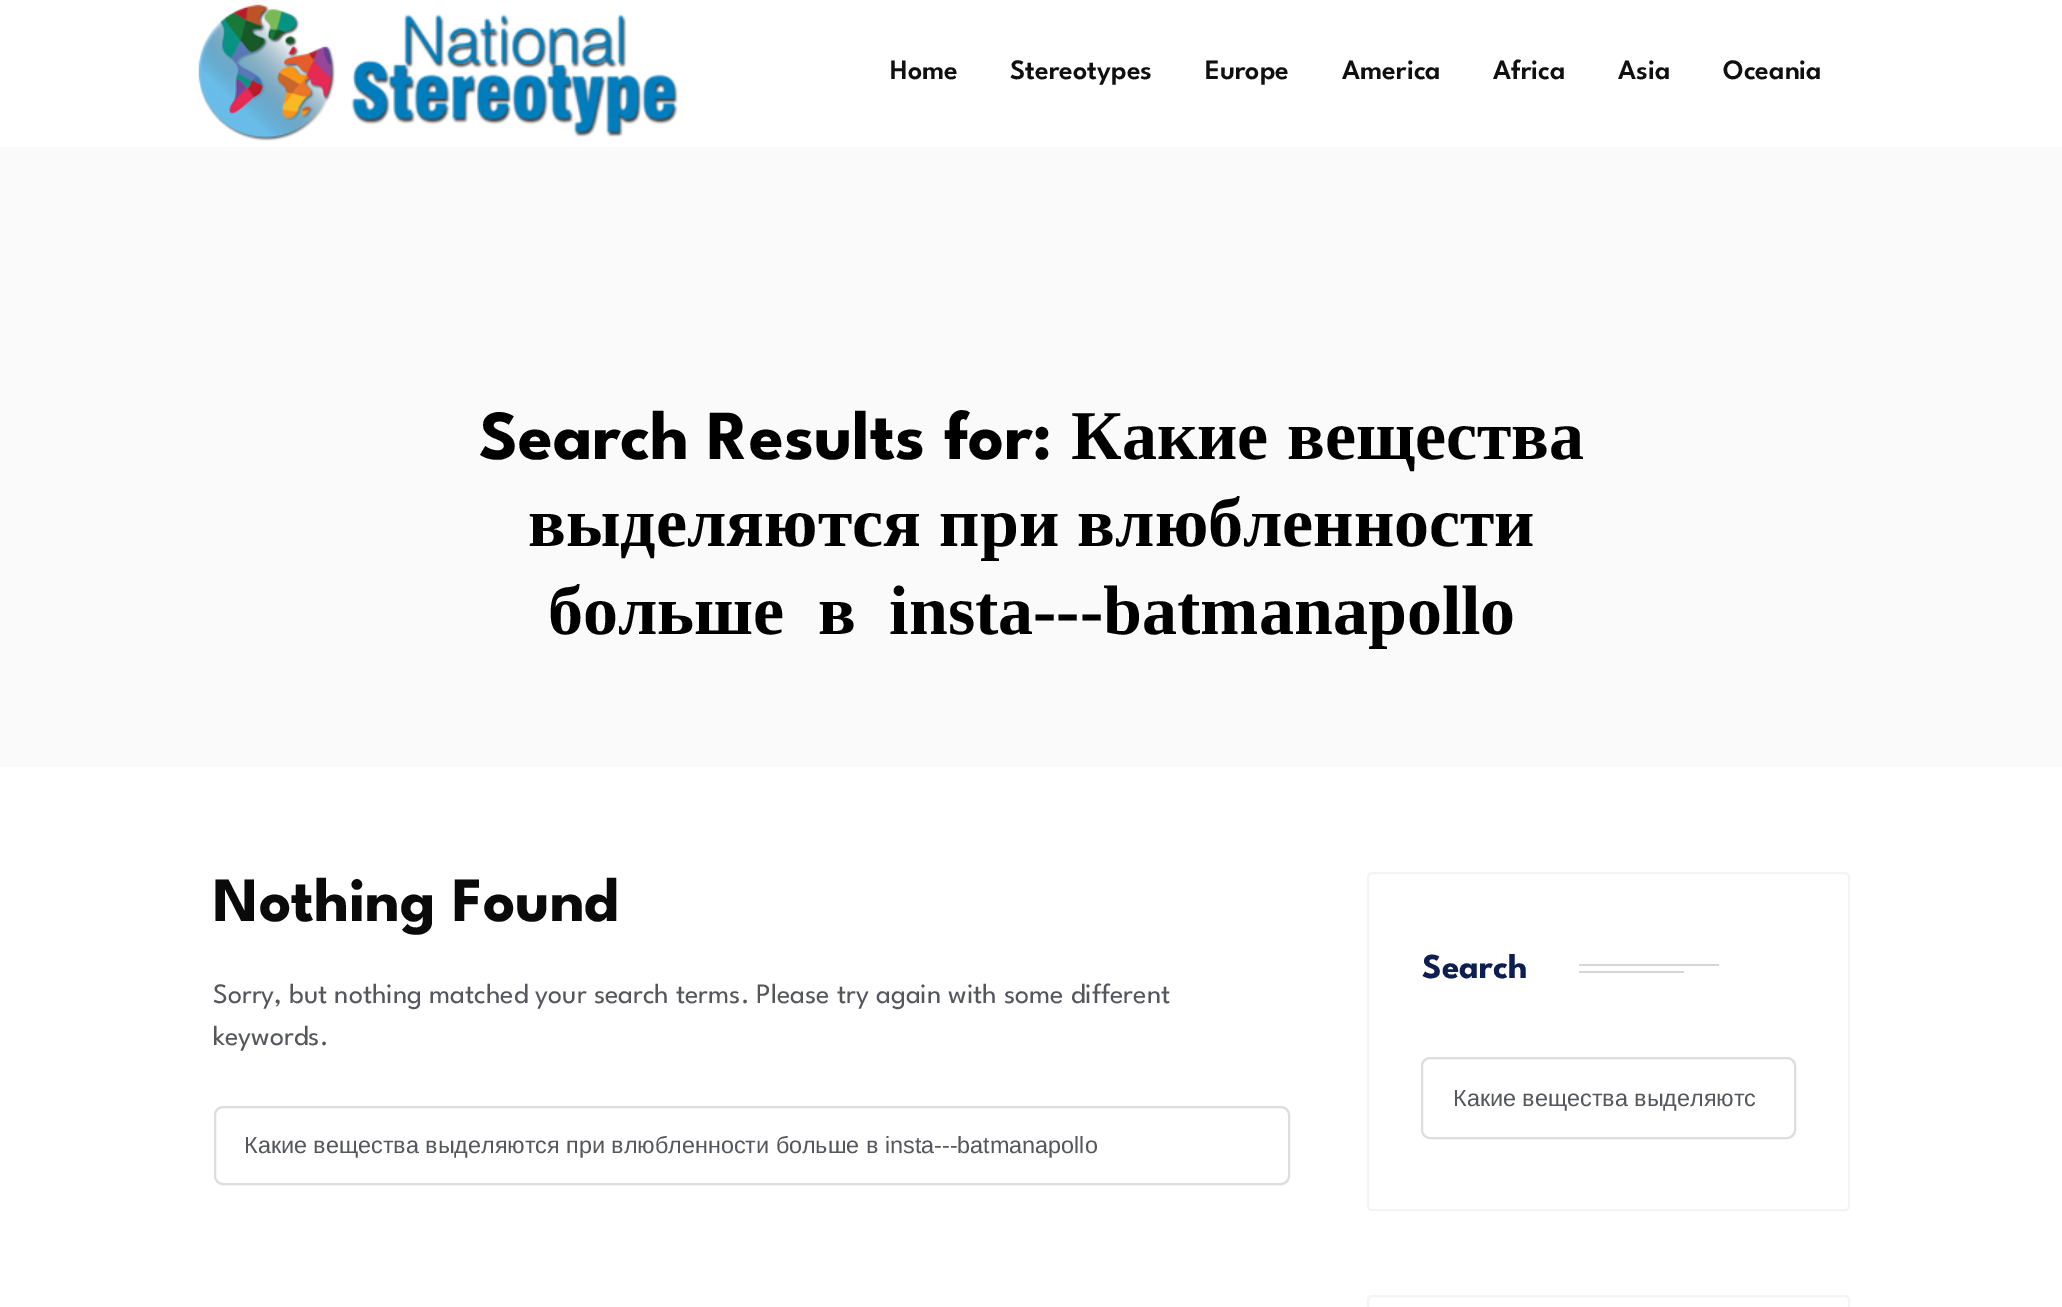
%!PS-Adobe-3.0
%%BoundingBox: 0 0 2062 1307
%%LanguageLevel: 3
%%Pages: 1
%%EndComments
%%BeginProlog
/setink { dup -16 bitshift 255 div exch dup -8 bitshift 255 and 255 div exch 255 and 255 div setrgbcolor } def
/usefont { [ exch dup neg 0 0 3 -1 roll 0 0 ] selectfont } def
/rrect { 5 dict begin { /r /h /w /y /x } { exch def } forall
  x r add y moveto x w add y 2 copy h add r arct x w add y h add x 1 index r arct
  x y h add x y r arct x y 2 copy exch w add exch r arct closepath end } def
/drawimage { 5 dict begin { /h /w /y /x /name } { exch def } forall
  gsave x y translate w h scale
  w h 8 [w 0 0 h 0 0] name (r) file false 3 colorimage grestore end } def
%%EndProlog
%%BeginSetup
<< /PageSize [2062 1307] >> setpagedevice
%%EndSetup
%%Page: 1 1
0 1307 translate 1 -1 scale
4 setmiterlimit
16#FFFFFF setink
0 0 2062 1307 rectfill
(img1.raw) 198 4 480 137 drawimage
/LeagueSpartan-SemiBold 28 usefont
16#101010 setink
[
    [(Home) 890 79]
    [(Stereotypes) 1010 79]
    [(Europe) 1205 79]
    [(America) 1342 79]
    [(Africa) 1493 79]
    [(Asia) 1618 79]
    [(Oceania) 1723 79]
] { aload pop moveto show } forall
16#FBFAFA setink
0 147 2062 620 rectfill
/LeagueSpartan-Bold 70 usefont
16#000000 setink
479 459 moveto (Search Results for:) show
/LiberationSerif-Bold 70 usefont
1071 459 moveto 1 0 32 (Какие вещества) widthshow
528 546 moveto 1 0 32 (выделяются при влюбленности) widthshow
548 634 moveto 16 0 32 (больше в insta---batmanapollo) widthshow
/LeagueSpartan-Bold 63 usefont
16#0A0A0A setink
213 921 moveto (Nothing Found) show
/LeagueSpartan-Regular 28 usefont
16#55575C setink
213 1003 moveto (Sorry, but nothing matched your search terms. Please try again with some different) show
213 1045 moveto (keywords.) show
16#DDDDDD setink
2 setlinewidth
215 1107 1074 77 8 rrect stroke
/LiberationSans-Regular 23.35 usefont
16#55575C setink
244 1153 moveto (Какие вещества выделяются при влюбленности больше в insta---batmanapollo) show
16#F4F4F4 setink
1368 873 481 337 4 rrect stroke
/LeagueSpartan-Bold 35 usefont
16#0D1E50 setink
1422 978 moveto (Search) show
16#D6D6D6 setink
1579 964 140 2 rectfill
1579 971 105 2 rectfill
16#DDDDDD setink
1422 1058 373 80 8 rrect stroke
/LiberationSans-Regular 23.35 usefont
16#55575C setink
1453 1106 moveto (Какие вещества выделяютс) show
16#F4F4F4 setink
1368 1296 481 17 4 rrect stroke
showpage
%%EOF
